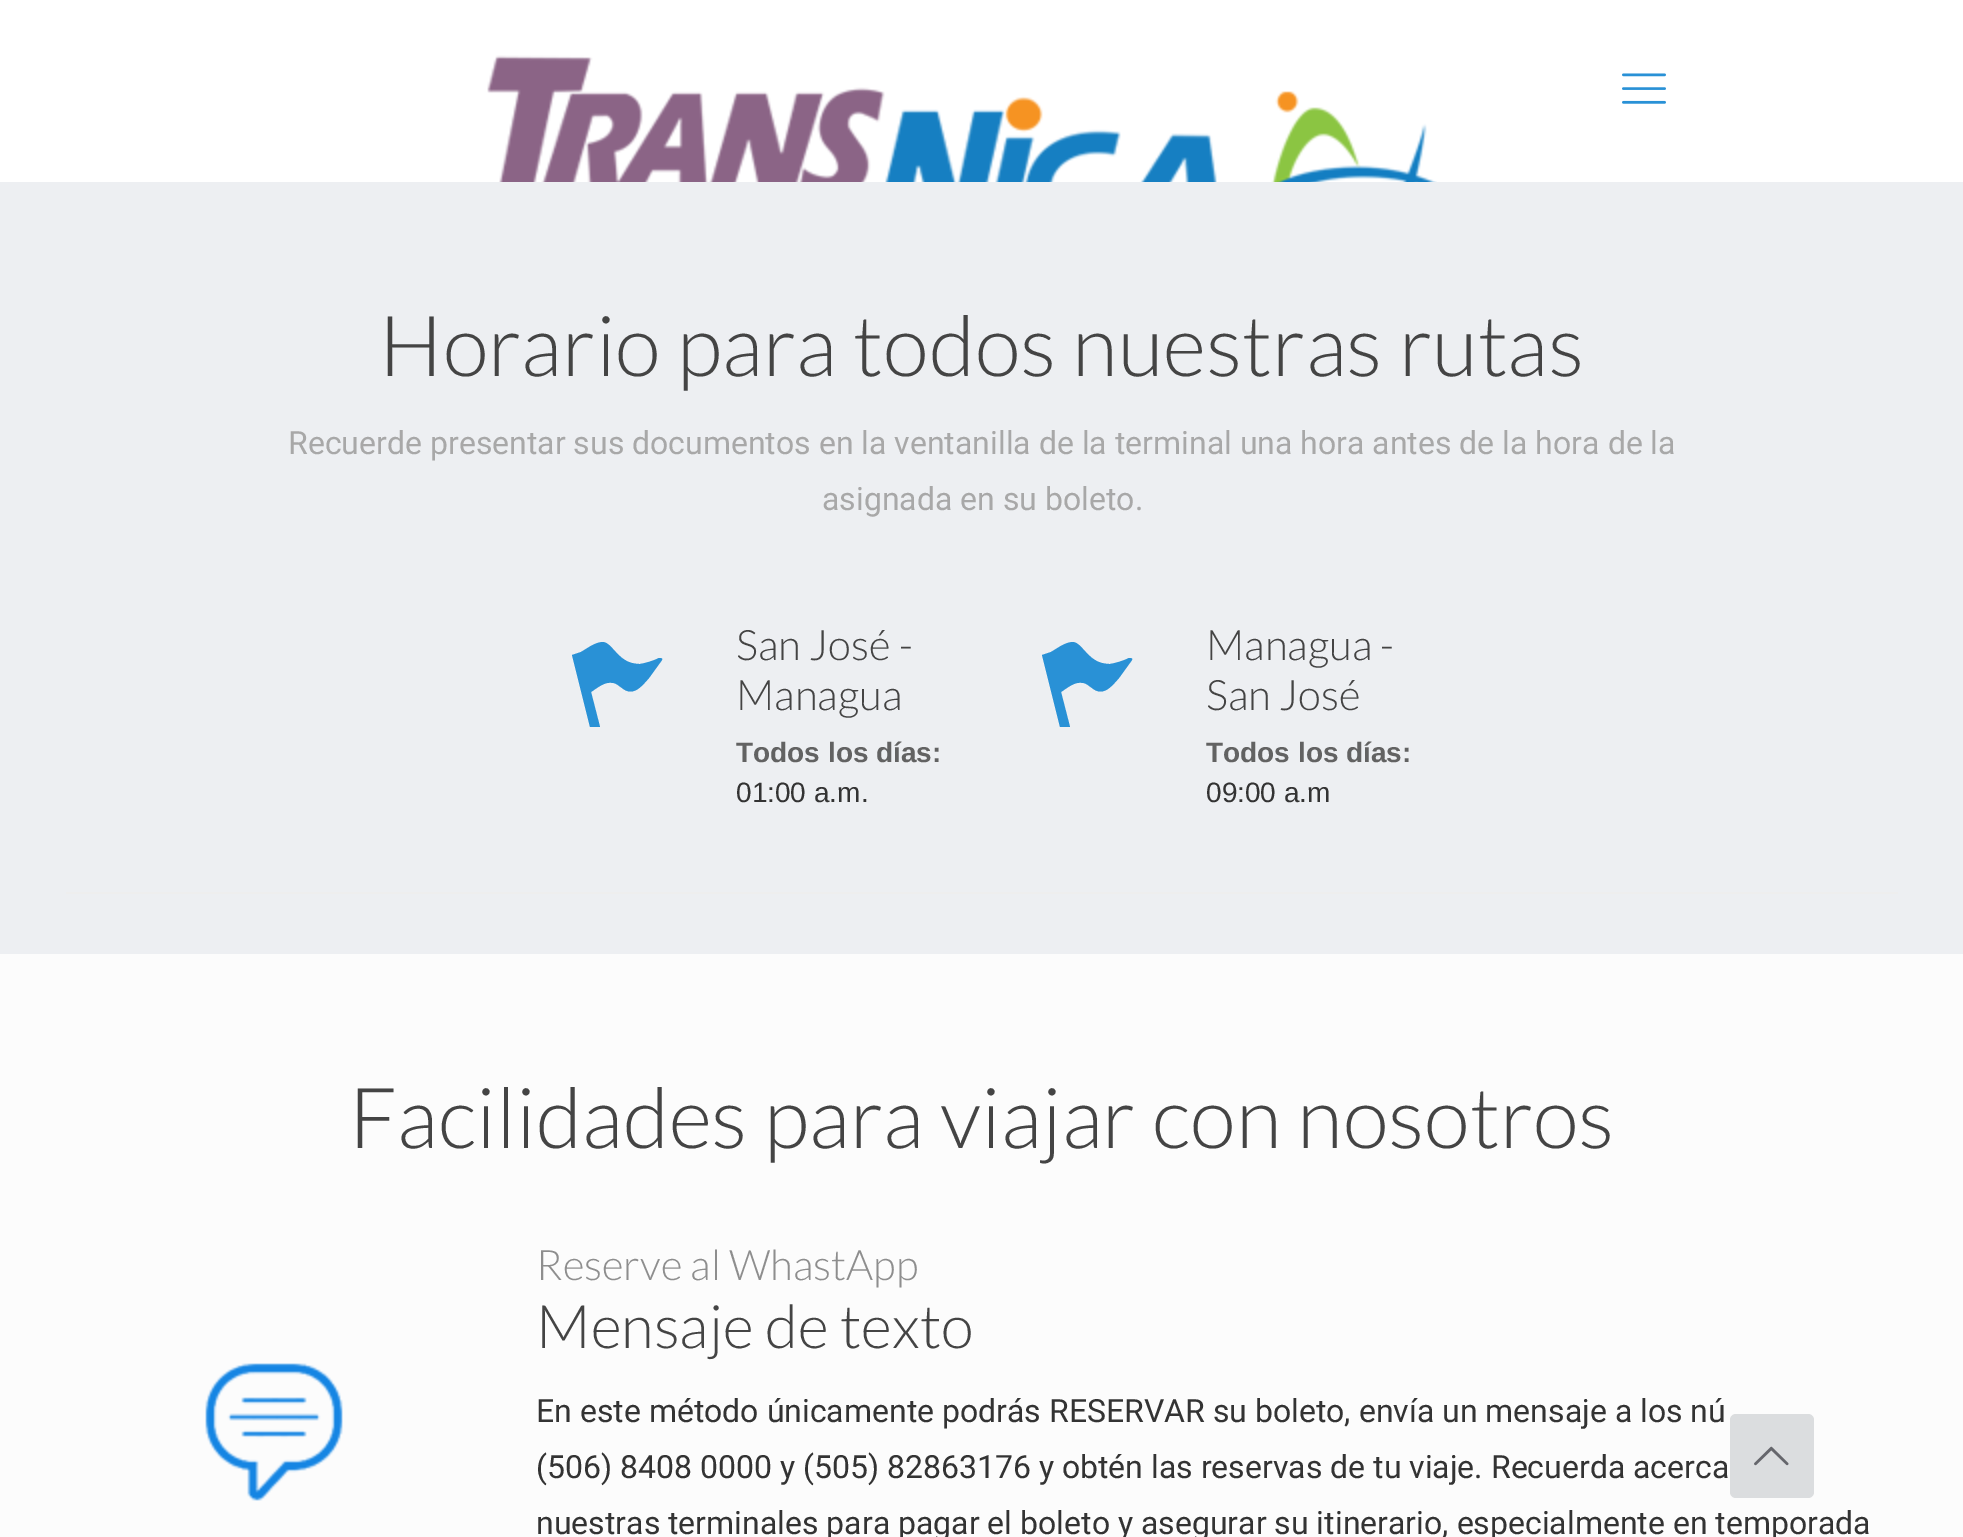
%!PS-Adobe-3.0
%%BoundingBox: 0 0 1963 1537
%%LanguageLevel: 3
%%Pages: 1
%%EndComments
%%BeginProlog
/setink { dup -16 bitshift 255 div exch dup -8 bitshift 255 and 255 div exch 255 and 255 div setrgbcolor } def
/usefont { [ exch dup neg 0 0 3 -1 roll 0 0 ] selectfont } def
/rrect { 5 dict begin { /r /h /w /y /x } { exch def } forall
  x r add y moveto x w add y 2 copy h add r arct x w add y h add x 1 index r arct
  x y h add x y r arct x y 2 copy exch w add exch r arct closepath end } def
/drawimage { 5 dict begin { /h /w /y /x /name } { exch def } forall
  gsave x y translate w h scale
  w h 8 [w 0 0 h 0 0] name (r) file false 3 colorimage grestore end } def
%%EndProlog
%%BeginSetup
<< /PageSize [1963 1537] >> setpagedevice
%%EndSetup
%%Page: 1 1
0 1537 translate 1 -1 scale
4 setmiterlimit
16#FFFFFF setink
0 0 1963 1537 rectfill
(img1.raw) 487 55 950 127 drawimage
(img2.raw) 1622 73 44 31 drawimage
16#FCFCFC setink
0 954 1963 583 rectfill
16#EDEFF2 setink
0 182 1963 772 rectfill
/Lato-Light 84 usefont
16#444444 setink
379 376 moveto (Horario para todos nuestras rutas) show
/Roboto-Regular 32 usefont
16#A8A8A8 setink
288 454 moveto (Recuerde presentar sus documentos en la ventanilla de la terminal una hora antes de la hora de la) show
822 510 moveto (asignada en su boleto.) show
16#2991D6 setink
659 658 moveto 660 658 663 658 662 660 curveto 649 678 lineto 641 687 633 697 622 688 curveto 619 686 616 683 613 683 curveto 605 681 597 688 591 692 curveto 600 727 lineto 590 727 lineto 572 655 lineto 581 652 lineto 588 648 594 643 602 642 curveto 607 642 610 646 613 649 curveto 621 658 627 664 640 664 curveto 646 663 653 661 659 658 curveto closepath fill
/Lato-Light 42 usefont
16#444444 setink
736 660 moveto (San José -) show
736 710 moveto (Managua) show
/LiberationSans-Bold 28 usefont
16#626262 setink
736 762 moveto (Todos los días:) show
/LiberationSans-Regular 28 usefont
16#333333 setink
736 802 moveto (01:00 a.m.) show
16#2991D6 setink
1129 658 moveto 1130 658 1133 658 1132 660 curveto 1119 678 lineto 1111 687 1103 697 1092 688 curveto 1089 686 1086 683 1083 683 curveto 1075 681 1067 688 1061 692 curveto 1070 727 lineto 1060 727 lineto 1042 655 lineto 1051 652 lineto 1058 648 1064 643 1072 642 curveto 1077 642 1080 646 1083 649 curveto 1091 658 1097 664 1110 664 curveto 1116 663 1123 661 1129 658 curveto closepath fill
/Lato-Light 42 usefont
16#444444 setink
1206 660 moveto (Managua -) show
1206 710 moveto (San José) show
/LiberationSans-Bold 28 usefont
16#626262 setink
1206 762 moveto (Todos los días:) show
/LiberationSans-Regular 28 usefont
16#333333 setink
1206 802 moveto (09:00 a.m) show
16#EEEEEE setink
66 892 1832 2 rectfill
/Lato-Light 84 usefont
16#444444 setink
349 1148 moveto (Facilidades para viajar con nosotros) show
(img3.raw) 205 1363 138 138 drawimage
/Lato-Light 42 usefont
16#8E8E8E setink
536 1280 moveto (Reserve al WhastApp) show
/Lato-Light 60 usefont
16#444444 setink
536 1348 moveto (Mensaje de texto) show
/Roboto-Regular 32 usefont
16#333333 setink
[
    [(En este método únicamente podrás RESERVAR su boleto, envía un mensaje a los nú) 536 1422]
    [(\(506\) 8408 0000 y \(505\) 82863176 y obtén las reservas de tu viaje. Recuerda acerca) 536 1478]
    [(nuestras terminales para pagar el boleto y asegurar su itinerario, especialmente en temporada) 536 1534]
] { aload pop moveto show } forall
16#DBDDDF setink
1730 1414 84 84 6 rrect fill
(img4.raw) 1754 1446 35 20 drawimage
showpage
%%EOF
